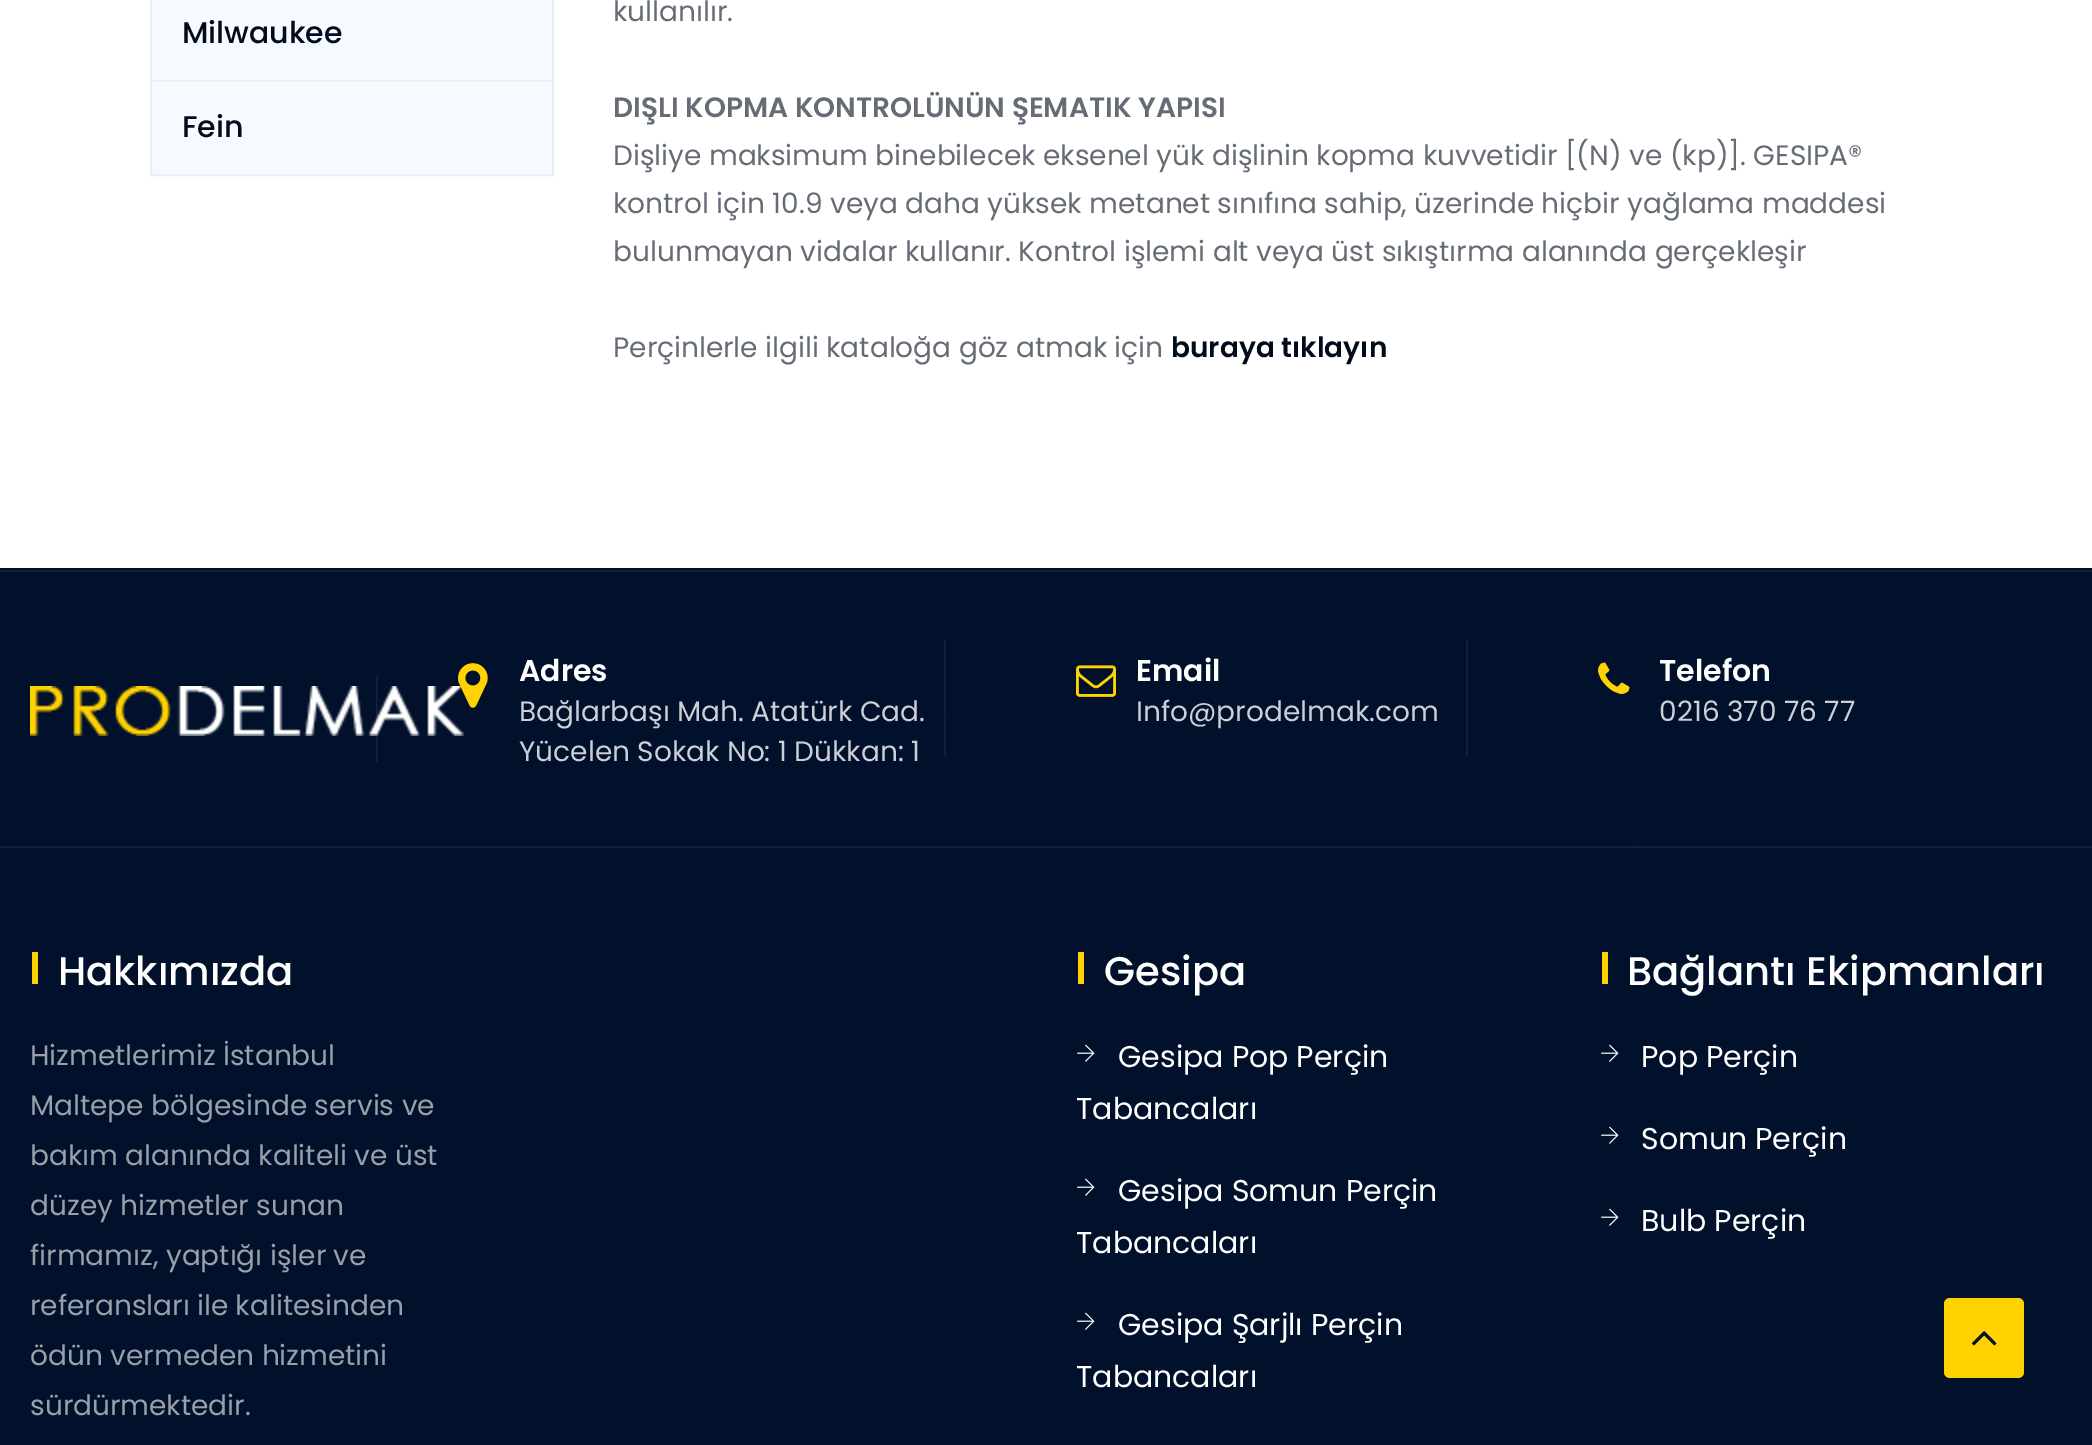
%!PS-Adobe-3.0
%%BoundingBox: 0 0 2092 1445
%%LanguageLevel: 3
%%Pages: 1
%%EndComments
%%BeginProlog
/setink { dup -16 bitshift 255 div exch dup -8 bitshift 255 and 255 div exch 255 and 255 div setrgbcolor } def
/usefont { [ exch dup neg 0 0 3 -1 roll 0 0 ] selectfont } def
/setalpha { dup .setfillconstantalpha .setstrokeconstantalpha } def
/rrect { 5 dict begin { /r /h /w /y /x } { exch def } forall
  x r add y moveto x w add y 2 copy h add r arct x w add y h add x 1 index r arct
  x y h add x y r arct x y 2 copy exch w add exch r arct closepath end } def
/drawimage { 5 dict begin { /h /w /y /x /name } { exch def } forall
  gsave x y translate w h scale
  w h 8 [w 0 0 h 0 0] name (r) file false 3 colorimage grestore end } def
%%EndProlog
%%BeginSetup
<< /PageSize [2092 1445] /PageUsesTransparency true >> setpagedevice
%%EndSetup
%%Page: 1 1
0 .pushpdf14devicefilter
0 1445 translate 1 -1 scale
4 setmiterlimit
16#FFFFFF setink
0 0 2092 1445 rectfill
16#F6F9FF setink
151 -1 moveto 553 -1 lineto 553 175 lineto 151 175 lineto closepath gsave fill grestore
16#E9EEF6 setink
2 setlinewidth
stroke
/Poppins-Medium 30 usefont
16#000B1C setink
182 43 moveto (Milwaukee) show
16#EEEEEE setink
152 80 400 2 rectfill
16#000B1C setink
182 137 moveto (Fein) show
/Poppins-Regular 28 usefont
16#656C76 setink
613 21 moveto (kullanılır.) show
/Poppins-SemiBold 28 usefont
613 117 moveto (DIŞLI KOPMA KONTROLÜNÜN ŞEMATIK YAPISI) show
/Poppins-Regular 28 usefont
[
    [(Dişliye maksimum binebilecek eksenel yük dişlinin kopma kuvvetidir [\(N\) ve \(kp\)]. GESIPA®) 613 165]
    [(kontrol için 10.9 veya daha yüksek metanet sınıfına sahip, üzerinde hiçbir yağlama maddesi) 613 213]
    [(bulunmayan vidalar kullanır. Kontrol işlemi alt veya üst sıkıştırma alanında gerçekleşir) 613 261]
    [(Perçinlerle ilgili kataloğa göz atmak için) 613 357]
] { aload pop moveto show } forall
/Poppins-SemiBold 28 usefont
16#000B1C setink
1171 357 moveto (buraya tıklayın) show
16#02112B setink
0 568 2092 877 rectfill
(img1.raw) 0 568 2066 877 drawimage
16#111F38 setink
0 570 2092 2 rectfill
(img2.raw) 30 686 434 50 drawimage
0.06 setalpha
16#FFFFFF setink
376 676 2 86 rectfill
1 setalpha
(img3.raw) 458 663 30 45 drawimage
/Poppins-SemiBold 30 usefont
519 681 moveto (Adres) show
/Poppins-Regular 28 usefont
16#CCCFD5 setink
519 721 moveto (Bağlarbaşı Mah. Atatürk Cad.) show
519 761 moveto (Yücelen Sokak No: 1 Dükkan: 1) show
16#111F38 setink
944 640 2 116 rectfill
(img4.raw) 1076 665 40 32 drawimage
/Poppins-SemiBold 30 usefont
16#FFFFFF setink
1136 681 moveto (Email) show
/Poppins-Regular 28 usefont
16#CCCFD5 setink
1136 721 moveto (Info@prodelmak.com) show
16#111F38 setink
1466 640 2 116 rectfill
(img5.raw) 1598 662 32 32 drawimage
/Poppins-SemiBold 30 usefont
16#FFFFFF setink
1659 681 moveto (Telefon) show
/Poppins-Regular 28 usefont
16#CCCFD5 setink
1659 721 moveto (0216 370 76 77) show
16#111F38 setink
0 846 2092 2 rectfill
16#FFD200 setink
32 952 6 32 rectfill
/Poppins-Medium 40 usefont
16#FFFFFF setink
58 985 moveto (Hakkımızda) show
/Poppins-Regular 28 usefont
16#9AA0AA setink
[
    [(Hizmetlerimiz İstanbul) 30 1065]
    [(Maltepe bölgesinde servis ve) 30 1115]
    [(bakım alanında kaliteli ve üst) 30 1165]
    [(düzey hizmetler sunan) 30 1215]
    [(firmamız, yaptığı işler ve) 30 1265]
    [(referansları ile kalitesinden) 30 1315]
    [(ödün vermeden hizmetini) 30 1365]
    [(sürdürmektedir.) 30 1415]
] { aload pop moveto show } forall
16#FFD200 setink
1078 952 6 32 rectfill
/Poppins-Medium 40 usefont
16#FFFFFF setink
1104 985 moveto (Gesipa) show
(img6.raw) 1077 1044 18 18 drawimage
/Poppins-Regular 30 usefont
1118 1067 moveto (Gesipa Pop Perçin) show
1076 1119 moveto (Tabancaları) show
(img7.raw) 1077 1178 18 18 drawimage
1118 1201 moveto (Gesipa Somun Perçin) show
1076 1253 moveto (Tabancaları) show
(img8.raw) 1077 1312 18 18 drawimage
1118 1335 moveto (Gesipa Şarjlı Perçin) show
1076 1387 moveto (Tabancaları) show
16#FFD200 setink
1602 952 6 32 rectfill
/Poppins-Medium 40 usefont
16#FFFFFF setink
1627 985 moveto (Bağlantı Ekipmanları) show
(img8.raw) 1601 1044 18 18 drawimage
/Poppins-Regular 30 usefont
1641 1067 moveto (Pop Perçin) show
(img8.raw) 1601 1126 18 18 drawimage
1641 1149 moveto (Somun Perçin) show
(img9.raw) 1601 1208 18 18 drawimage
1641 1231 moveto (Bulb Perçin) show
16#FFD200 setink
1944 1298 80 80 6 rrect fill
(img10.raw) 1971 1331 26 15 drawimage
.poppdf14devicefilter showpage
%%EOF
